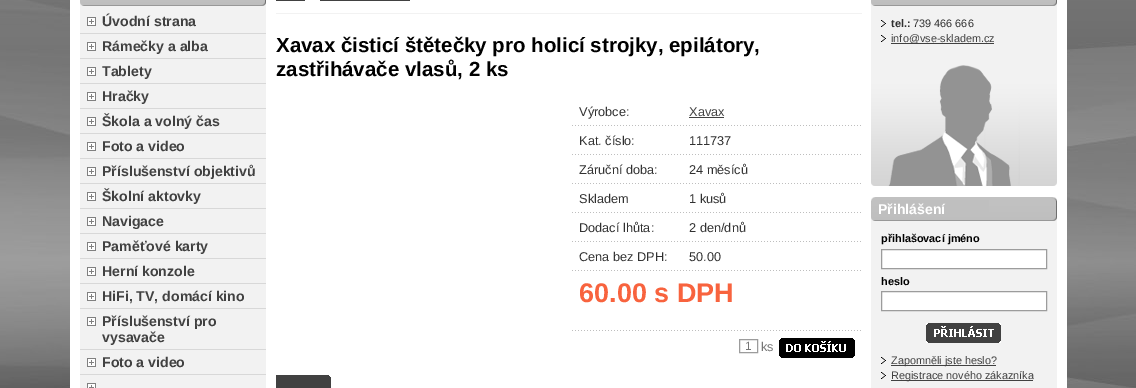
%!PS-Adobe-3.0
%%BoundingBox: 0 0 1136 388
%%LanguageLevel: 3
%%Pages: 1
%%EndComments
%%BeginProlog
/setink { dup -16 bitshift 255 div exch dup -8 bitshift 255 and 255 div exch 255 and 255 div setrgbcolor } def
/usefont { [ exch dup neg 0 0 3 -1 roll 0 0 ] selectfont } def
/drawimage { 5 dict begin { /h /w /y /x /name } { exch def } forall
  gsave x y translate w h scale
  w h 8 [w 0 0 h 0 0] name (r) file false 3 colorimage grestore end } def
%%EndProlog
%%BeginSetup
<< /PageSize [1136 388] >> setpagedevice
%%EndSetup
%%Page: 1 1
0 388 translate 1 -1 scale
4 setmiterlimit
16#FFFFFF setink
0 0 1136 388 rectfill
(img1.raw) 0 0 1136 388 drawimage
70 0 997 388 rectfill
(img2.raw) 80 0 186 6 drawimage
16#F2F2F2 setink
80 6 186 382 rectfill
(img3.raw) 87 17 9 9 drawimage
16#D8D8D8 setink
80 33 186 1 rectfill
/LiberationSans-Bold 14.1 usefont
16#414141 setink
102 26 moveto (Úvodní strana) show
(img3.raw) 87 42 9 9 drawimage
16#D8D8D8 setink
80 58 186 1 rectfill
16#414141 setink
102 51 moveto (Rámečky a alba) show
(img3.raw) 87 67 9 9 drawimage
16#D8D8D8 setink
80 83 186 1 rectfill
16#414141 setink
102 76 moveto (Tablety) show
(img3.raw) 87 92 9 9 drawimage
16#D8D8D8 setink
80 108 186 1 rectfill
16#414141 setink
102 101 moveto (Hračky) show
(img3.raw) 87 117 9 9 drawimage
16#D8D8D8 setink
80 133 186 1 rectfill
16#414141 setink
102 126 moveto (Škola a volný čas) show
(img3.raw) 87 142 9 9 drawimage
16#D8D8D8 setink
80 158 186 1 rectfill
16#414141 setink
102 151 moveto (Foto a video) show
(img3.raw) 87 167 9 9 drawimage
16#D8D8D8 setink
80 183 186 1 rectfill
16#414141 setink
102 176 moveto (Příslušenství objektivů) show
(img3.raw) 87 192 9 9 drawimage
16#D8D8D8 setink
80 208 186 1 rectfill
16#414141 setink
102 201 moveto (Školní aktovky) show
(img3.raw) 87 217 9 9 drawimage
16#D8D8D8 setink
80 233 186 1 rectfill
16#414141 setink
102 226 moveto (Navigace) show
(img3.raw) 87 242 9 9 drawimage
16#D8D8D8 setink
80 258 186 1 rectfill
16#414141 setink
102 251 moveto (Paměťové karty) show
(img3.raw) 87 267 9 9 drawimage
16#D8D8D8 setink
80 283 186 1 rectfill
16#414141 setink
102 276 moveto (Herní konzole) show
(img3.raw) 87 292 9 9 drawimage
16#D8D8D8 setink
80 308 186 1 rectfill
16#414141 setink
102 301 moveto (HiFi, TV, domácí kino) show
(img3.raw) 87 317 9 9 drawimage
16#D8D8D8 setink
80 349 186 1 rectfill
16#414141 setink
102 326 moveto (Příslušenství pro) show
102 342 moveto (vysavače) show
(img3.raw) 87 358 9 9 drawimage
16#D8D8D8 setink
80 374 186 1 rectfill
16#414141 setink
102 367 moveto (Foto a video) show
(img4.raw) 87 383 9 5 drawimage
[
    [276 13 586 1 16#F2F2F2]
    [276 0 29 1 16#414141]
    [320 0 90 1 16#414141]
] { aload pop setink rectfill } forall
/LiberationSans-Bold 20.5 usefont
16#000000 setink
276 52 moveto (Xavax čisticí štětečky pro holicí strojky, epilátory,) show
276 76 moveto (zastřihávače vlasů, 2 ks) show
(img5.raw) 572 125 289 1 drawimage
/LiberationSans-Regular 12.75 usefont
16#313131 setink
579 116 moveto (Výrobce:) show
16#414141 setink
689 116 moveto (Xavax) show
689 117 35 1 rectfill
(img5.raw) 572 154 289 1 drawimage
16#313131 setink
579 145 moveto (Kat. číslo:) show
689 145 moveto (111737) show
(img5.raw) 572 183 289 1 drawimage
579 174 moveto (Záruční doba:) show
689 174 moveto (24 měsíců) show
(img5.raw) 572 212 289 1 drawimage
579 203 moveto (Skladem) show
689 203 moveto (1 kusů) show
(img5.raw) 572 241 289 1 drawimage
579 232 moveto (Dodací lhůta:) show
689 232 moveto (2 den/dnů) show
(img5.raw) 572 270 289 1 drawimage
579 261 moveto (Cena bez DPH:) show
689 261 moveto (50.00) show
(img5.raw) 572 330 289 1 drawimage
/LiberationSans-Bold 27 usefont
16#F8633E setink
579 302 moveto (60.00 s DPH) show
16#9C9C9C setink
739.5 339.5 18 13 rectstroke
/LiberationSans-Regular 12 usefont
16#767676 setink
745 350 moveto (1) show
/LiberationSans-Regular 12.75 usefont
761 351 moveto (ks) show
(img6.raw) 779 338 76 20 drawimage
16#414141 setink
276 375 55 13 rectfill
(img7.raw) 329 375 2 2 drawimage
(img2.raw) 871 0 186 6 drawimage
16#F2F2F2 setink
871 6 186 59 rectfill
(img8.raw) 871 65 186 121 drawimage
(img9.raw) 881 20 5 7 drawimage
/LiberationSans-Bold 10.9 usefont
16#313131 setink
891 27 moveto (tel.:) show
/LiberationSans-Regular 10.9 usefont
913 27 moveto (739 466 666) show
(img9.raw) 881 35 5 7 drawimage
16#414141 setink
891 43 103 1 rectfill
891 42 moveto (info@vse-skladem.cz) show
(img10.raw) 871 197 186 24 drawimage
/LiberationSans-Bold 14.1 usefont
16#FFFFFF setink
878 214 moveto (Přihlášení) show
16#F2F2F2 setink
871 221 186 167 rectfill
/LiberationSans-Bold 10.9 usefont
16#000000 setink
881 242 moveto (přihlašovací jméno) show
16#FFFFFF setink
881.5 249.5 moveto 1046.5 249.5 lineto 1046.5 268.5 lineto 881.5 268.5 lineto closepath gsave fill grestore
16#9C9C9C setink
stroke
16#000000 setink
881 285 moveto (heslo) show
16#FFFFFF setink
881.5 291.5 moveto 1046.5 291.5 lineto 1046.5 310.5 lineto 881.5 310.5 lineto closepath gsave fill grestore
16#9C9C9C setink
stroke
(img11.raw) 926 323 75 20 drawimage
(img9.raw) 881 357 5 7 drawimage
16#414141 setink
891 365 105 1 rectfill
/LiberationSans-Regular 10.9 usefont
891 364 moveto (Zapomněli jste heslo?) show
(img9.raw) 881 372 5 7 drawimage
891 380 142 1 rectfill
891 379 moveto (Registrace nového zákazníka) show
showpage
%%EOF
